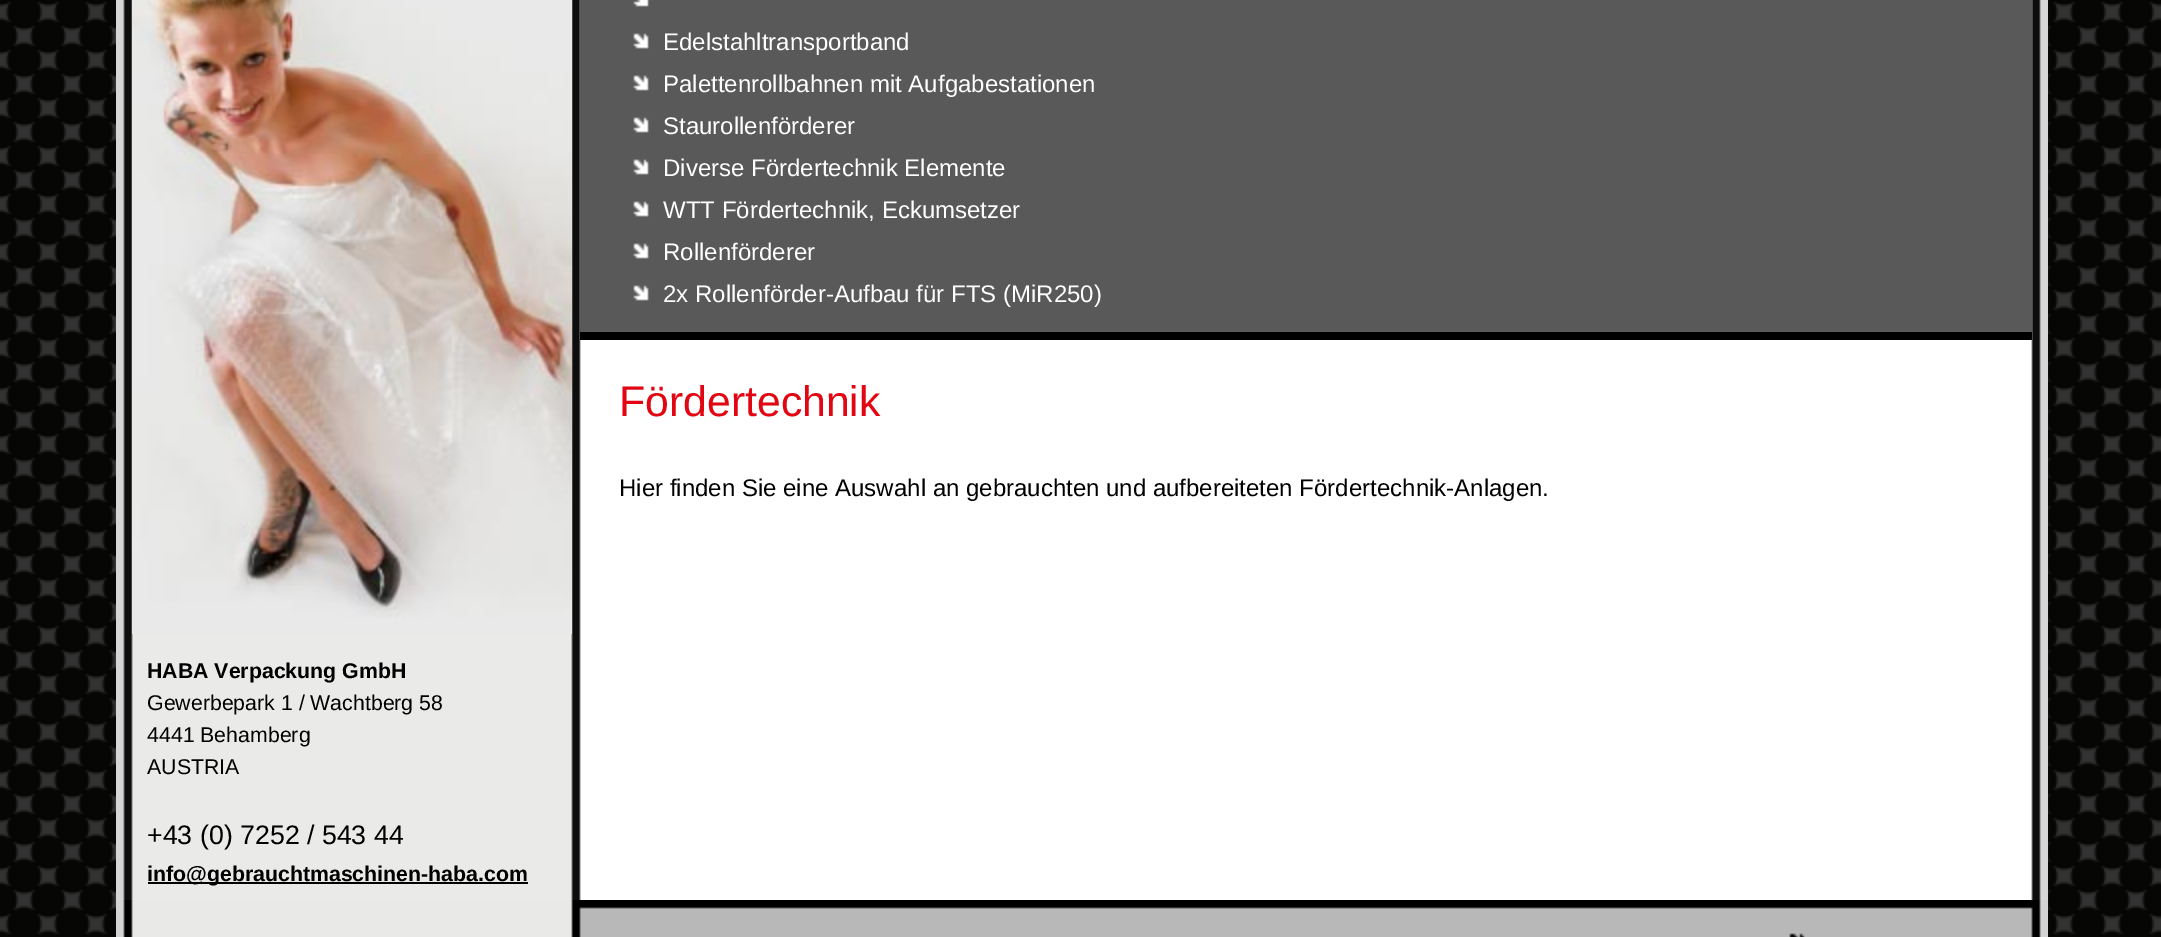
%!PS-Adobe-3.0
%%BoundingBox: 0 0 2161 937
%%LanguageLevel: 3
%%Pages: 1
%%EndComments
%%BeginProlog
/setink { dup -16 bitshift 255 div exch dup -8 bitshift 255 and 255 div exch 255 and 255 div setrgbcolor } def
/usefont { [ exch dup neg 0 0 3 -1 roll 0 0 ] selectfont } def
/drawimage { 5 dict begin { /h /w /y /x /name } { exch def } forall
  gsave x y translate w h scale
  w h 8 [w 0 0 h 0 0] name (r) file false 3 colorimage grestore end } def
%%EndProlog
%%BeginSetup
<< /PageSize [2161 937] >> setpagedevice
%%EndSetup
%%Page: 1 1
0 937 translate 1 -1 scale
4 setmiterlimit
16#FFFFFF setink
0 0 2161 937 rectfill
(img1.raw) 0 0 2161 937 drawimage
(img2.raw) 116 0 1932 900 drawimage
16#595959 setink
580 0 1452 332 rectfill
(img3.raw) 633 0 16 7 drawimage
(img4.raw) 633 33 16 16 drawimage
/LiberationSans-Regular 24 usefont
16#FFFFFF setink
663 50 moveto (Edelstahltransportband) show
(img4.raw) 633 75 16 16 drawimage
663 92 moveto (Palettenrollbahnen mit Aufgabestationen) show
(img4.raw) 633 117 16 16 drawimage
663 134 moveto (Staurollenförderer) show
(img4.raw) 633 159 16 16 drawimage
663 176 moveto (Diverse Fördertechnik Elemente) show
(img4.raw) 633 201 16 16 drawimage
663 218 moveto (WTT Fördertechnik, Eckumsetzer) show
(img4.raw) 633 243 16 16 drawimage
663 260 moveto (Rollenförderer) show
(img4.raw) 633 285 16 16 drawimage
663 302 moveto (2x Rollenförder-Aufbau für FTS \(MiR250\)) show
16#000000 setink
580 332 1452 8 rectfill
/LiberationSans-Regular 42.75 usefont
16#E20613 setink
619 416 moveto (Fördertechnik) show
/LiberationSans-Regular 24 usefont
16#000000 setink
619 496 moveto (Hier finden Sie eine Auswahl an gebrauchten und aufbereiteten Fördertechnik-Anlagen.) show
(img5.raw) 132 0 440 634 drawimage
/LiberationSans-Bold 21.3 usefont
147 678 moveto (HABA Verpackung GmbH) show
/LiberationSans-Regular 21.3 usefont
[
    [(Gewerbepark 1 / Wachtberg 58) 147 710]
    [(4441 Behamberg) 147 742]
    [(AUSTRIA) 147 774]
] { aload pop moveto show } forall
/LiberationSans-Regular 26.75 usefont
147 844 moveto (+43 \(0\) 7252 / 543 44) show
148 882 380 2 rectfill
/LiberationSans-Bold 21.3 usefont
147 881 moveto (info@gebrauchtmaschinen-haba.com) show
(img6.raw) 116 900 1932 37 drawimage
(img7.raw) 1789 933 16 4 drawimage
showpage
%%EOF
